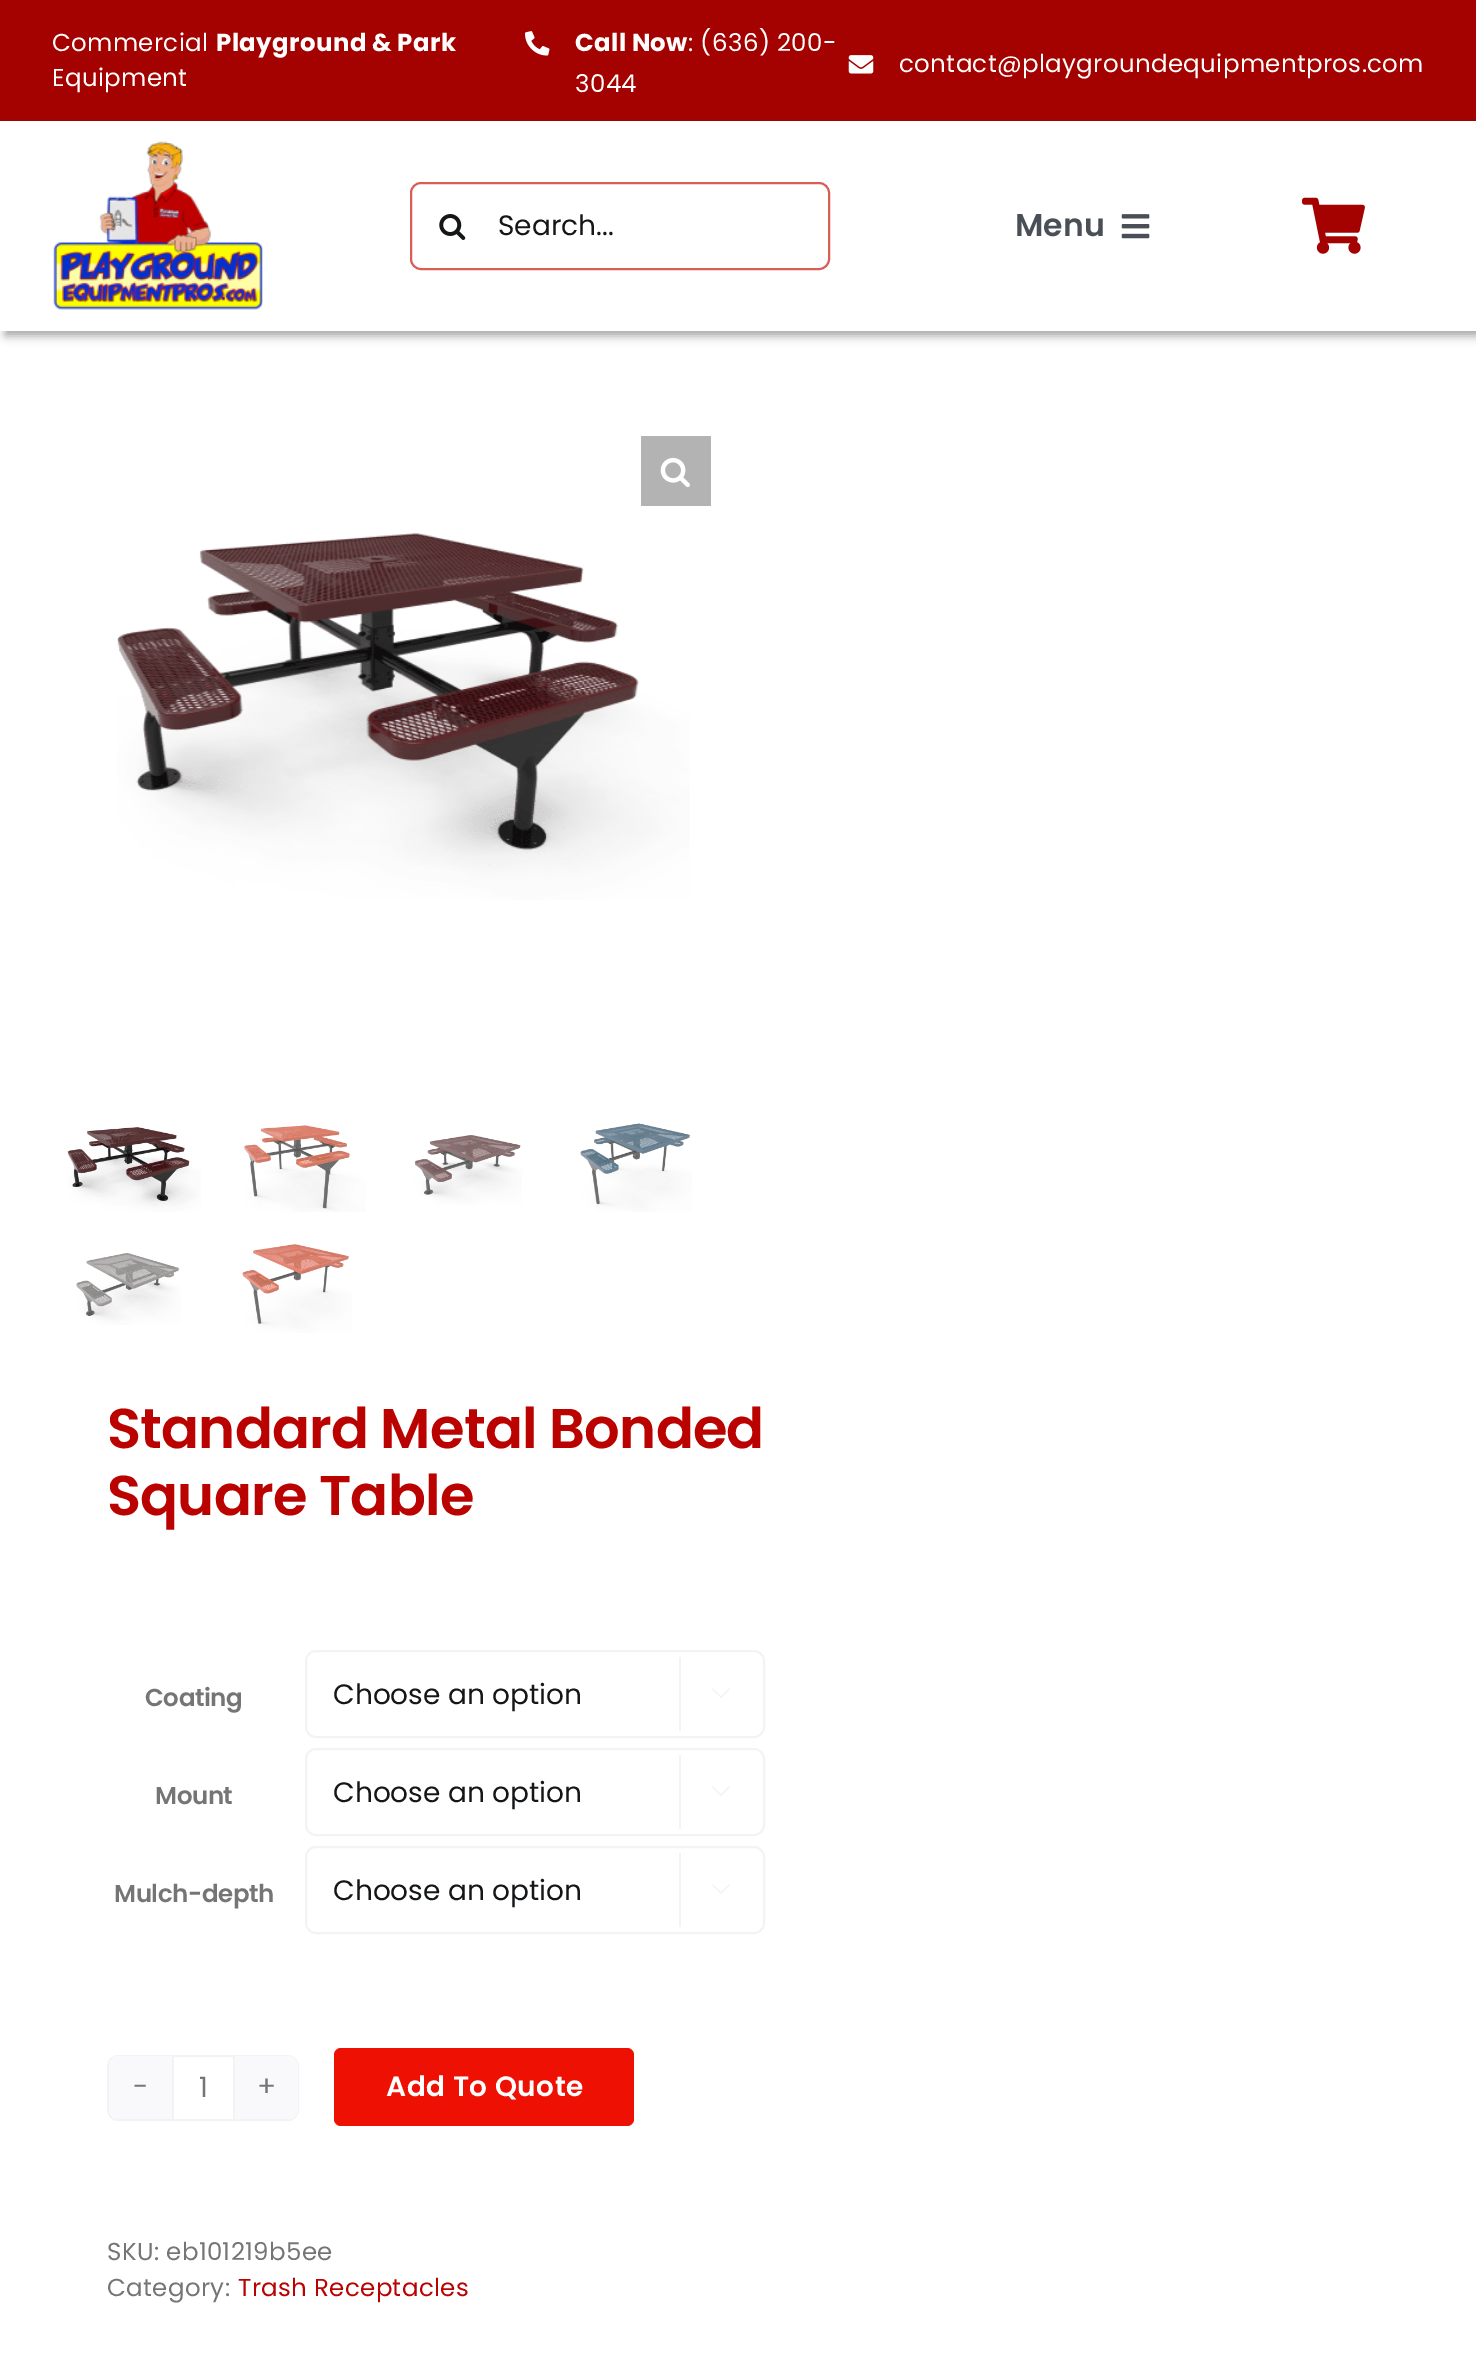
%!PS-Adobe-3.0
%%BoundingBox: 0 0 1476 2377
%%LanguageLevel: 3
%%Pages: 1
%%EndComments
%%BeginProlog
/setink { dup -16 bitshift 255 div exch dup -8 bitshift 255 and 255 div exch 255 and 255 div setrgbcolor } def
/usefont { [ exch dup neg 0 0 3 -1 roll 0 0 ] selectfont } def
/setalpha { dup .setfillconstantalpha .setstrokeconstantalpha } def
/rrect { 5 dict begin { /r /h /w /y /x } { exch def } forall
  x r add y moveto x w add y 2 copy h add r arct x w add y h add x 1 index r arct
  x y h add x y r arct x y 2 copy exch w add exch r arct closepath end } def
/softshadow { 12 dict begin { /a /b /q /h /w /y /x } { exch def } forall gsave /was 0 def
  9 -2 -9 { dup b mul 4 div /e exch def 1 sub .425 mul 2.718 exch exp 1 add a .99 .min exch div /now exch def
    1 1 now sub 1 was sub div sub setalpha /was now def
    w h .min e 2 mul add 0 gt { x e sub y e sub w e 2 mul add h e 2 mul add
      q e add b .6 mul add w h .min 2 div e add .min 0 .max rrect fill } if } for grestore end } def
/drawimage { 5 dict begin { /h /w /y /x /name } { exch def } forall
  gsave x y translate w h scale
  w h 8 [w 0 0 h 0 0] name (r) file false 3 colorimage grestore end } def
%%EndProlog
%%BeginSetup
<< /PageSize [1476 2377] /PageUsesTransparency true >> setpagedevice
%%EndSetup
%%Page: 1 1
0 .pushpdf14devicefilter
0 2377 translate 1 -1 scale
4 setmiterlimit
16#FFFFFF setink
0 0 1476 2377 rectfill
16#A30201 setink
0 0 1476 121 rectfill
/Poppins-Regular 24.5 usefont
16#FFFFFF setink
52 51 moveto 0.35 0 (Commercial) ashow
/Poppins-Bold 24.5 usefont
216 51 moveto 0.35 0 (Playground & Park) ashow
/Poppins-Regular 24.5 usefont
52 86 moveto 0.35 0 (Equipment) ashow
(img1.raw) 525 31 25 25 drawimage
/Poppins-Bold 24.5 usefont
575 51 moveto 0.35 0 (Call Now) ashow
/Poppins-Regular 24.5 usefont
688 51 moveto 0.35 0 (: \(636\) 200-) ashow
575 92 moveto 0.35 0 (3044) ashow
(img2.raw) 848 55 26 19 drawimage
899 72 moveto 0.35 0 (contact@playgroundequipmentpros.com) ashow
gsave
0 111 moveto 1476 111 lineto 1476 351 lineto 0 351 lineto closepath 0 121 moveto 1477 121 lineto 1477 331 lineto 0 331 lineto closepath eoclip newpath
16#333333 setink
5 126 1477 210 0 4.5 0.43 softshadow
grestore
(img3.raw) 53 141 210 169 drawimage
16#DA5E58 setink
2 setlinewidth
411 183 418 86 10 rrect stroke
(img4.raw) 439 214 27 26 drawimage
/Poppins-Regular 28 usefont
16#141617 setink
498 235 moveto (Search...) show
/Poppins-SemiBold 31.5 usefont
16#4A4E57 setink
1015 236 moveto (Menu) show
(img5.raw) 1121 214 29 25 drawimage
(img6.raw) 1302 197 63 57 drawimage
16#B3B3B3 setink
641 436 70 70 rectfill
(img7.raw) 660 457 30 31 drawimage
(img8.raw) 117 533 573 367 drawimage
(img9.raw) 67 1127 134 85 drawimage
(img10.raw) 244 1125 122 87 drawimage
(img11.raw) 414 1135 108 70 drawimage
(img12.raw) 580 1123 112 89 drawimage
(img13.raw) 76 1253 105 72 drawimage
(img14.raw) 242 1244 110 89 drawimage
/Poppins-SemiBold 56 usefont
16#BA0201 setink
107 1448 moveto -0.8 0 (Standard Metal Bonded) ashow
107 1515 moveto -0.8 0 (Square Table) ashow
/Poppins-SemiBold 24.5 usefont
16#757575 setink
145 1706 moveto -0.4 0 (Coating) ashow
16#F2F3F5 setink
306 1651 458 86 10 rrect stroke
/Poppins-Regular 28 usefont
16#141617 setink
333 1704 moveto (Choose an option) show
16#F2F3F5 setink
679 1657 2 74 rectfill
(img15.raw) 712 1688 18 10 drawimage
/Poppins-SemiBold 24.5 usefont
16#757575 setink
155 1804 moveto -0.4 0 (Mount) ashow
16#F2F3F5 setink
306 1749 458 86 10 rrect stroke
/Poppins-Regular 28 usefont
16#141617 setink
333 1802 moveto (Choose an option) show
16#F2F3F5 setink
679 1755 2 74 rectfill
(img15.raw) 712 1786 18 10 drawimage
/Poppins-SemiBold 24.5 usefont
16#757575 setink
114 1902 moveto -0.4 0 (Mulch-depth) ashow
16#F2F3F5 setink
306 1847 458 86 10 rrect stroke
/Poppins-Regular 28 usefont
16#141617 setink
333 1900 moveto (Choose an option) show
16#F2F3F5 setink
679 1853 2 74 rectfill
(img15.raw) 712 1884 18 10 drawimage
108 2056 190 64 10 rrect stroke
16#F9F9FB setink
118 2056 moveto 172 2056 lineto 172 2119 lineto 118 2119 lineto 113 2119 109 2115 109 2110 curveto 109 2065 lineto 109 2060 113 2056 118 2056 curveto closepath fill
16#757575 setink
133 2096 moveto (-) show
16#F2F3F5 setink
233 2056 2 63 rectfill
172 2056 2 63 rectfill
16#757575 setink
199 2097 moveto (1) show
16#F9F9FB setink
235 2056 moveto 289 2056 lineto 294 2056 298 2060 298 2065 curveto 298 2110 lineto 298 2115 294 2119 289 2119 curveto 235 2119 lineto closepath fill
16#757575 setink
257 2096 moveto (+) show
16#EF1004 setink
334 2048 300 78 7 rrect fill
/Poppins-SemiBold 28 usefont
16#FFFFFF setink
386 2096 moveto 0.5 0 (Add To Quote) ashow
/Poppins-Regular 24.5 usefont
16#757575 setink
107 2260 moveto 0.35 0 (SKU: eb101219b5ee) ashow
107 2296 moveto 0.35 0 (Category:) ashow
16#BA0201 setink
238 2296 moveto 0.35 0 (Trash Receptacles) ashow
.poppdf14devicefilter showpage
%%EOF
